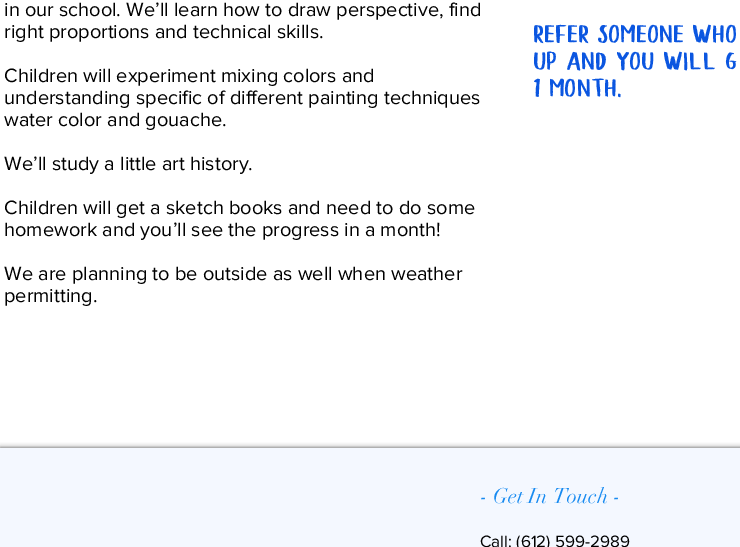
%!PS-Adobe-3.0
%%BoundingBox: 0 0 740 547
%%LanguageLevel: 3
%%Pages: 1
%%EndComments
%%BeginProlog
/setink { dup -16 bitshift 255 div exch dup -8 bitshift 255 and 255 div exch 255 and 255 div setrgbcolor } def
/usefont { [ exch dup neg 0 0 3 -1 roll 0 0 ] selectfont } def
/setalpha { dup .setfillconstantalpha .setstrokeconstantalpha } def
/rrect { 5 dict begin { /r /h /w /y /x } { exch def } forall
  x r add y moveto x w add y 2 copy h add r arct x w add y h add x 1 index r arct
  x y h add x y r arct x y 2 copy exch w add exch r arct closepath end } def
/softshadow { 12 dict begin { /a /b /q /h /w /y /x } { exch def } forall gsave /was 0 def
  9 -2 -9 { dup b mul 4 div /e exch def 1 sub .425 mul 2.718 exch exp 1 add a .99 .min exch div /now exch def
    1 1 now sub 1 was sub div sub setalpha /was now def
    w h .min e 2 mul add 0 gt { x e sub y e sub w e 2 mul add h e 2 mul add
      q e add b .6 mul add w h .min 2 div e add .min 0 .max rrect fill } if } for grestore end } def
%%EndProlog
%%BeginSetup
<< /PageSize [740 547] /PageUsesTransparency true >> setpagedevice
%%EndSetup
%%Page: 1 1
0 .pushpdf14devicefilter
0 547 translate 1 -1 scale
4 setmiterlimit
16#FFFFFF setink
0 0 740 547 rectfill
/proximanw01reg-Regular 20 usefont
16#000000 setink
[
    [(in our school. We’ll learn how to draw perspective, find) 4 16]
    [(right proportions and technical skills.) 4 38]
    [(Children will experiment mixing colors and) 4 82]
    [(understanding specific of different painting techniques) 4 104]
    [(water color and gouache.) 4 126]
    [(We’ll study a little art history.) 4 170]
    [(Children will get a sketch books and need to do some) 4 214]
    [(homework and you’ll see the progress in a month!) 4 236]
    [(We are planning to be outside as well when weather) 4 280]
    [(permitting.) 4 302]
] { aload pop moveto show } forall
/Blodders-Regular 26 usefont
16#0B56E0 setink
534 43 moveto (Refer someone who) show
534 70 moveto 0.5 0 32 (up and you will g) widthshow
534 97 moveto (1 month.) show
16#000000 setink
0 448 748 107 0 2.5 0.7 softshadow
16#F4F8FF setink
0 448 740 99 rectfill
/didot-Regular 21 usefont
16#178AF0 setink
480 503 moveto (- Get In Touch -) show
/proximanw01reg-Regular 17 usefont
16#000000 setink
480 547 moveto (Call: \(612\) 599-2989) show
.poppdf14devicefilter showpage
%%EOF
